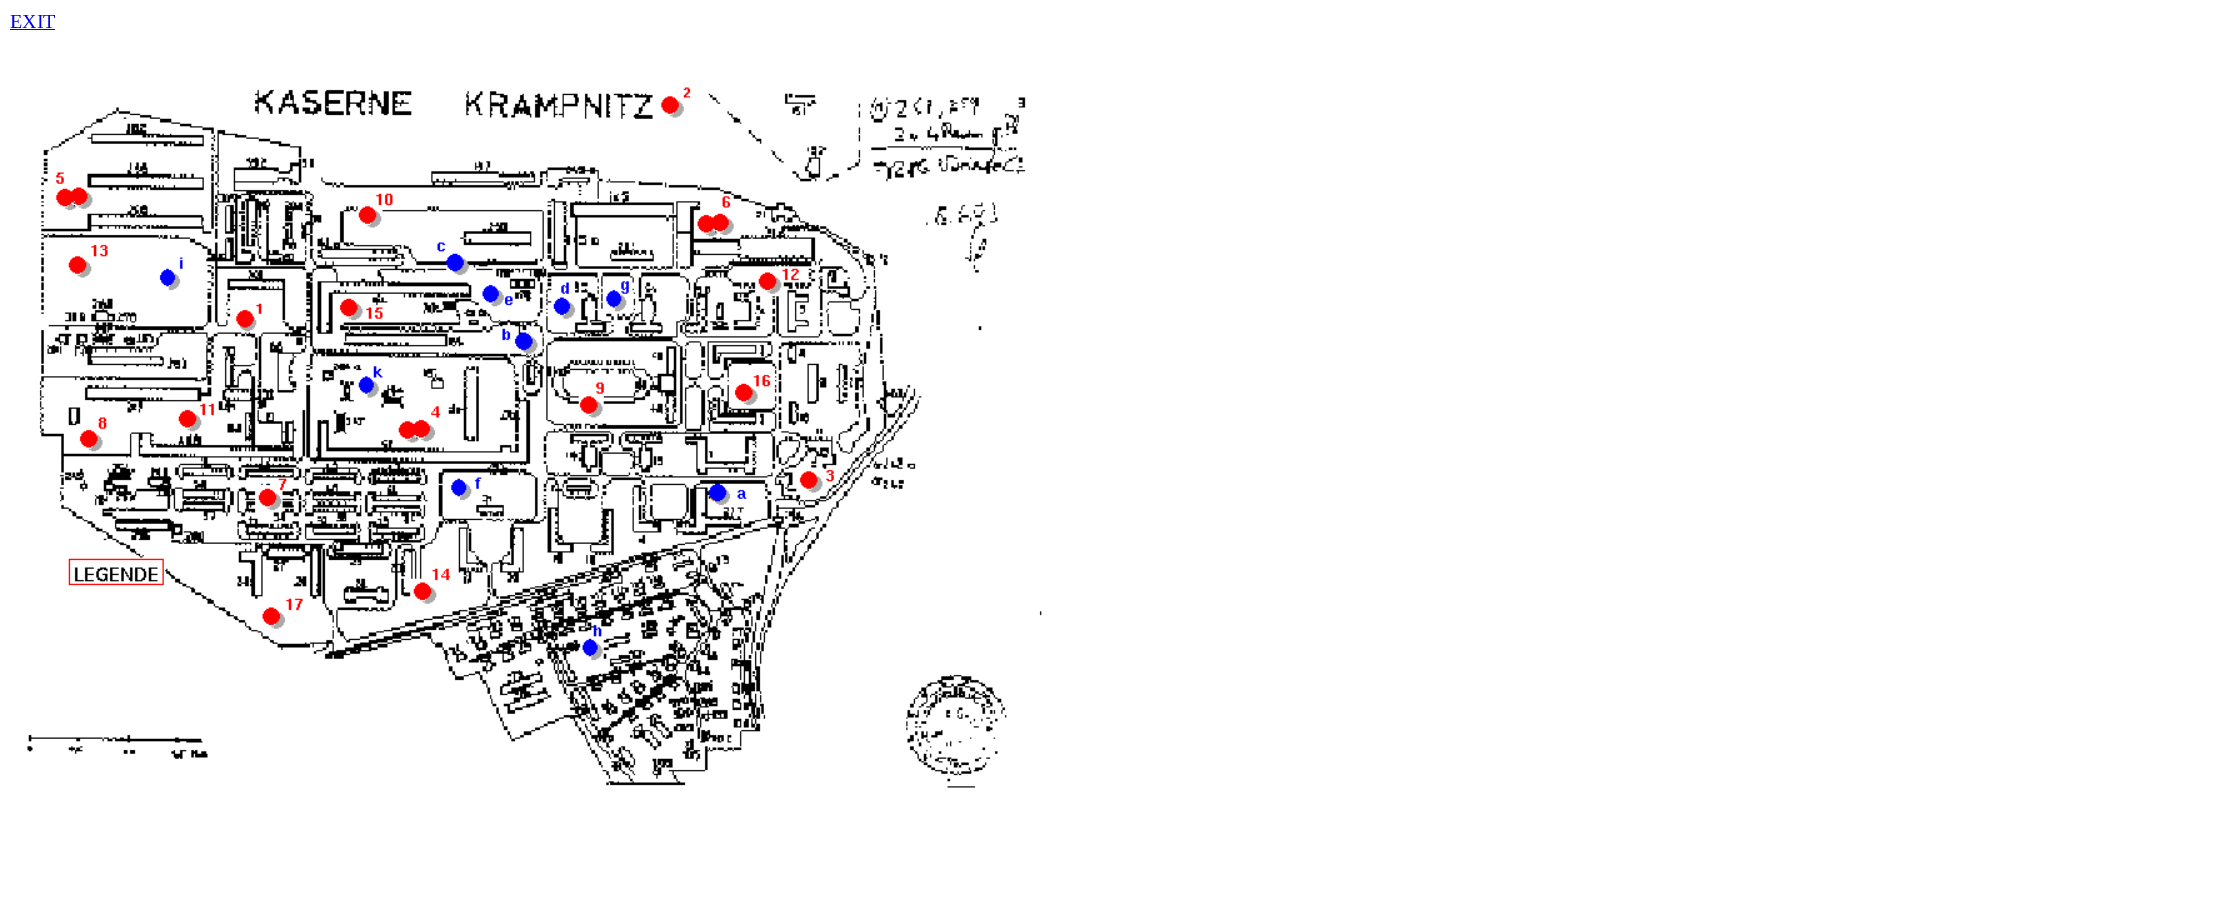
%!PS-Adobe-3.0
%%BoundingBox: 0 0 2232 910
%%LanguageLevel: 3
%%Pages: 1
%%EndComments
%%BeginProlog
/setink { dup -16 bitshift 255 div exch dup -8 bitshift 255 and 255 div exch 255 and 255 div setrgbcolor } def
/usefont { [ exch dup neg 0 0 3 -1 roll 0 0 ] selectfont } def
/drawimage { 5 dict begin { /h /w /y /x /name } { exch def } forall
  gsave x y translate w h scale
  w h 8 [w 0 0 h 0 0] name (r) file false 3 colorimage grestore end } def
%%EndProlog
%%BeginSetup
<< /PageSize [2232 910] >> setpagedevice
%%EndSetup
%%Page: 1 1
0 910 translate 1 -1 scale
4 setmiterlimit
16#FFFFFF setink
0 0 2232 910 rectfill
/LiberationSerif-Regular 20 usefont
16#0000EE setink
10 28 moveto (EXIT) show
10 29 45 1 rectfill
(img1.raw) 27 87 1015 701 drawimage
showpage
%%EOF
